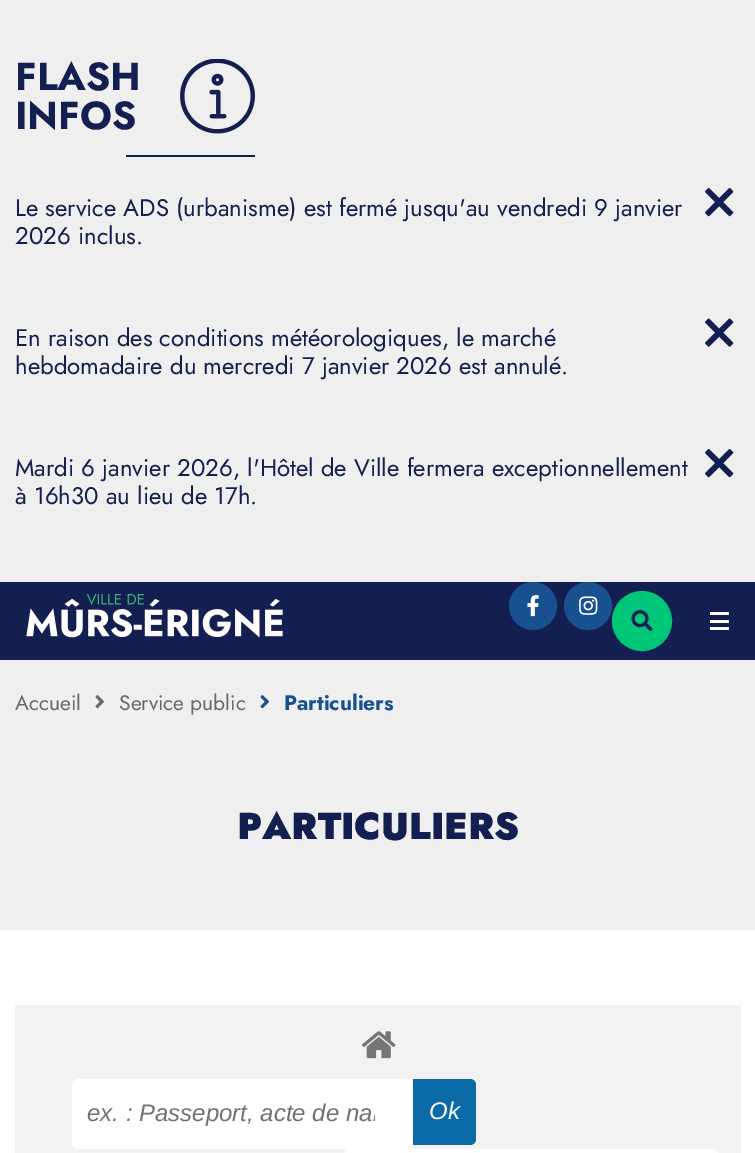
%!PS-Adobe-3.0
%%BoundingBox: 0 0 755 1153
%%LanguageLevel: 3
%%Pages: 1
%%EndComments
%%BeginProlog
/setink { dup -16 bitshift 255 div exch dup -8 bitshift 255 and 255 div exch 255 and 255 div setrgbcolor } def
/usefont { [ exch dup neg 0 0 3 -1 roll 0 0 ] selectfont } def
/disc { newpath 0 360 arc closepath } def
/rrect { 5 dict begin { /r /h /w /y /x } { exch def } forall
  x r add y moveto x w add y 2 copy h add r arct x w add y h add x 1 index r arct
  x y h add x y r arct x y 2 copy exch w add exch r arct closepath end } def
/drawimage { 5 dict begin { /h /w /y /x /name } { exch def } forall
  gsave x y translate w h scale
  w h 8 [w 0 0 h 0 0] name (r) file false 3 colorimage grestore end } def
%%EndProlog
%%BeginSetup
<< /PageSize [755 1153] >> setpagedevice
%%EndSetup
%%Page: 1 1
0 1153 translate 1 -1 scale
4 setmiterlimit
16#FFFFFF setink
0 0 755 1153 rectfill
16#EFEFEF setink
0 0 755 582 rectfill
/Jost-Bold 39 usefont
16#121F50 setink
15 90 moveto (FLASH) show
15 129 moveto (INFOS) show
(img1.raw) 180 59 75 75 drawimage
126 155 129 2 rectfill
/Jost-Regular 24 usefont
15 216 moveto (Le service ADS \(urbanisme\) est fermé jusqu'au vendredi 9 janvier) show
15 244 moveto (2026 inclus.) show
(img2.raw) 705 188 29 29 drawimage
15 346 moveto (En raison des conditions météorologiques, le marché) show
15 374 moveto (hebdomadaire du mercredi 7 janvier 2026 est annulé.) show
(img3.raw) 705 318 29 29 drawimage
15 476 moveto (Mardi 6 janvier 2026, l'Hôtel de Ville fermera exceptionnellement) show
15 504 moveto (à 16h30 au lieu de 17h.) show
(img2.raw) 705 449 29 29 drawimage
0 582 755 78 rectfill
(img4.raw) 26 594 257 44 drawimage
16#195190 setink
533 606 23 disc gsave fill grestore
2 setlinewidth
stroke
(img5.raw) 527 595 12 22 drawimage
588 606 23 disc gsave fill grestore
stroke
(img6.raw) 579 596 19 19 drawimage
16#00C777 setink
642 621 29 disc gsave fill grestore
stroke
(img7.raw) 631 610 22 22 drawimage
[
    [710 612 19 3 16#FFFFFF]
    [710 620 19 3 16#FFFFFF]
    [710 627 19 3 16#FFFFFF]
    [0 660 755 270 16#EFEFEF]
] { aload pop setink rectfill } forall
/Jost-Regular 21 usefont
16#696969 setink
15 710 moveto (Accueil) show
(img8.raw) 95 695 9 14 drawimage
119 710 moveto (Service public) show
(img9.raw) 260 695 9 14 drawimage
/Jost-Bold 21 usefont
16#195190 setink
284 710 moveto (Particuliers) show
/Jost-Black 37.5 usefont
16#121F50 setink
237 839 moveto (PARTICULIERS) show
16#F2F2F2 setink
15 1005 726 148 rectfill
(img10.raw) 362 1031 34 28 drawimage
16#FFFFFF setink
78 1079 moveto 413 1079 lineto 413 1149 lineto 78 1149 lineto 74.5 1149 72 1146.5 72 1143 curveto 72 1085 lineto 72 1081.5 74.5 1079 78 1079 curveto closepath fill
gsave
87 1100 288 27 rectclip
/LiberationSans-Italic 24 usefont
16#727272 setink
87 1121 moveto (ex. : Passeport, acte de nai) show
grestore
16#0B6BA8 setink
413 1079 moveto 470 1079 lineto 473.5 1079 476 1081.5 476 1085 curveto 476 1139 lineto 476 1142.5 473.5 1145 470 1145 curveto 413 1145 lineto closepath fill
/LiberationSans-Italic 24 usefont
16#FFFFFF setink
429 1119 moveto (Ok) show
344 1149 375 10 6 rrect fill
showpage
%%EOF
